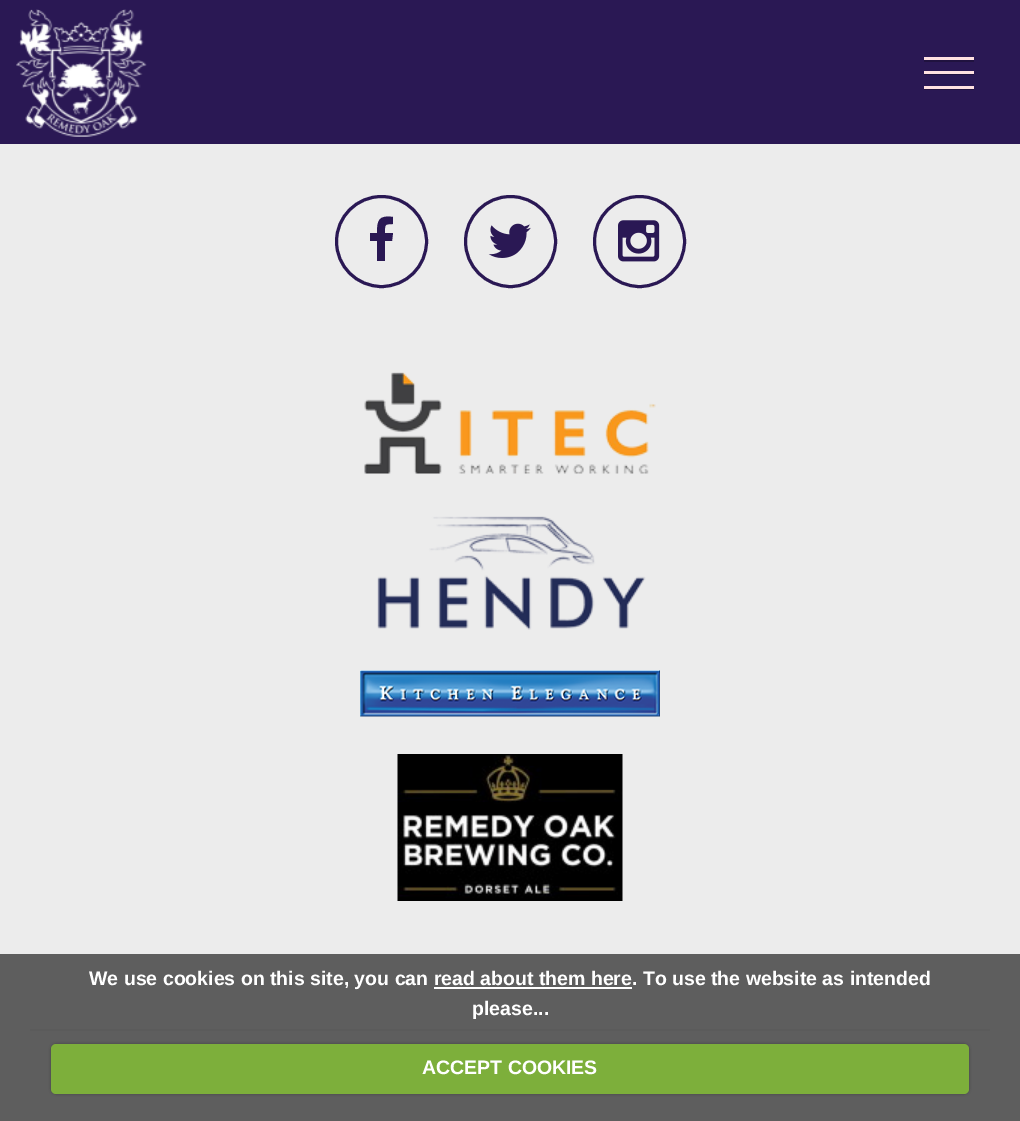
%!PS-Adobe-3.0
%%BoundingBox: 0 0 1020 1121
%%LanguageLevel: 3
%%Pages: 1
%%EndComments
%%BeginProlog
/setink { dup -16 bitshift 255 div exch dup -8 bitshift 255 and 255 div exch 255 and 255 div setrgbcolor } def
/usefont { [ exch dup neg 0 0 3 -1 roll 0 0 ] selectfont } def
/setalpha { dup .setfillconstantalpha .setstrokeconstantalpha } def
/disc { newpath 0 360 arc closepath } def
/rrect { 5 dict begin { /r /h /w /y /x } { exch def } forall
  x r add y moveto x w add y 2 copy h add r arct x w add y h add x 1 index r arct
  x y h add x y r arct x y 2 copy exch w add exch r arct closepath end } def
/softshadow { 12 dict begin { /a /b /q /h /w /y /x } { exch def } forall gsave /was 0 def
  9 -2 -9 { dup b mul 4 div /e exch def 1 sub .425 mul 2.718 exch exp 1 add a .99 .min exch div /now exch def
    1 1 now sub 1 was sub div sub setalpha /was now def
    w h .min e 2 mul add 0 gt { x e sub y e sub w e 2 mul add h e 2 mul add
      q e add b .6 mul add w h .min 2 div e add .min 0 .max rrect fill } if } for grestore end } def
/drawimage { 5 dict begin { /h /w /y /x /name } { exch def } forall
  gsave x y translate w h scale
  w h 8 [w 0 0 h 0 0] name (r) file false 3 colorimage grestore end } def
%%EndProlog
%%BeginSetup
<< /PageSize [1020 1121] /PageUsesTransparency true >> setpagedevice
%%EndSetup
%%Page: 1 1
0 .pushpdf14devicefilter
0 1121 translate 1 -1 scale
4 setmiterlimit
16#ECECEC setink
0 0 1020 1121 rectfill
16#2A1854 setink
0 0 1020 144 rectfill
(img1.raw) 16 9 131 128 drawimage
16#20123F setink
924 60 moveto 924 62 lineto 974 62 lineto 974 59 lineto 974 60 lineto closepath fill
16#FFE1E1 setink
924 57 50 3 rectfill
16#20123F setink
924 74 moveto 924 75 lineto 974 75 lineto 974 72 lineto 974 74 lineto closepath fill
16#FFE1E1 setink
924 71 50 3 rectfill
16#20123F setink
924 88 moveto 924 90 lineto 974 90 lineto 974 87 lineto 974 88 lineto closepath fill
16#FFE1E1 setink
924 86 50 3 rectfill
16#5E5E5E setink
0 954 1020 167 rectfill
16#2A1854 setink
3 setlinewidth
381.5 241.5 45 disc stroke
393 217 moveto 393 224 lineto 384 224 385 225 385 233 curveto 393 233 lineto 392 241 lineto 385 241 lineto 385 261 lineto 377 261 lineto 377 241 lineto 370 241 lineto 370 233 lineto 377 233 lineto 377 220 379 215 393 217 curveto closepath fill
510.5 241.5 45 disc stroke
(img2.raw) 488 223 43 35 drawimage
639.5 241.5 45 disc stroke
(img3.raw) 618 220 42 42 drawimage
(img4.raw) 364 372 292 102 drawimage
(img5.raw) 377 516 269 114 drawimage
(img6.raw) 360 670 300 47 drawimage
(img7.raw) 397 754 226 147 drawimage
16#5B5B5B setink
30 1029 960 2 rectfill
/LiberationSans-Bold 19.5 usefont
16#FFFFFF setink
89 985 moveto (We use cookies on this site, you can read about them here. To use the website as intended) show
434 987 198 2 rectfill
472 1015 moveto (please...) show
16#000000 setink
51 1044 918 50 5 1.5 0.25 softshadow
16#7DAF3B setink
51 1044 918 50 5 rrect fill
16#FFFFFF setink
422 1074 moveto (ACCEPT COOKIES) show
.poppdf14devicefilter showpage
%%EOF
